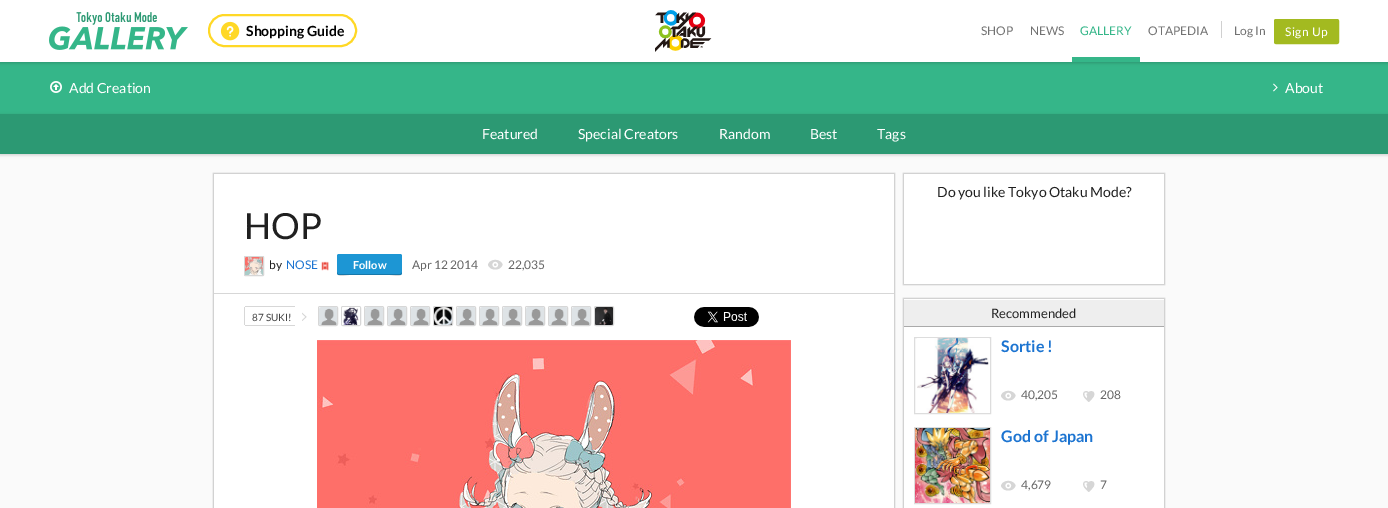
%!PS-Adobe-3.0
%%BoundingBox: 0 0 1388 508
%%LanguageLevel: 3
%%Pages: 1
%%EndComments
%%BeginProlog
/setink { dup -16 bitshift 255 div exch dup -8 bitshift 255 and 255 div exch 255 and 255 div setrgbcolor } def
/usefont { [ exch dup neg 0 0 3 -1 roll 0 0 ] selectfont } def
/setalpha { dup .setfillconstantalpha .setstrokeconstantalpha } def
/rrect { 5 dict begin { /r /h /w /y /x } { exch def } forall
  x r add y moveto x w add y 2 copy h add r arct x w add y h add x 1 index r arct
  x y h add x y r arct x y 2 copy exch w add exch r arct closepath end } def
/softshadow { 12 dict begin { /a /b /q /h /w /y /x } { exch def } forall gsave /was 0 def
  9 -2 -9 { dup b mul 4 div /e exch def 1 sub .425 mul 2.718 exch exp 1 add a .99 .min exch div /now exch def
    1 1 now sub 1 was sub div sub setalpha /was now def
    w h .min e 2 mul add 0 gt { x e sub y e sub w e 2 mul add h e 2 mul add
      q e add b .6 mul add w h .min 2 div e add .min 0 .max rrect fill } if } for grestore end } def
/drawimage { 5 dict begin { /h /w /y /x /name } { exch def } forall
  gsave x y translate w h scale
  w h 8 [w 0 0 h 0 0] name (r) file false 3 colorimage grestore end } def
%%EndProlog
%%BeginSetup
<< /PageSize [1388 508] /PageUsesTransparency true >> setpagedevice
%%EndSetup
%%Page: 1 1
0 .pushpdf14devicefilter
0 508 translate 1 -1 scale
4 setmiterlimit
16#FAFAFA setink
0 0 1388 508 rectfill
16#35B689 setink
0 62 1388 52 rectfill
16#000000 setink
0 1 1388 62 0 1.5 0.18 softshadow
16#FFFFFF setink
0 0 1388 62 rectfill
(img1.raw) 49 12 139 38 drawimage
16#FFD826 setink
2 setlinewidth
209 15 147 31 15.5 rrect stroke
(img2.raw) 220 21 20 20 drawimage
/Lato-Bold 14 usefont
16#000000 setink
246 36 moveto (Shopping Guide) show
(img3.raw) 655 10 57 42 drawimage
/Lato-Regular 12 usefont
16#727272 setink
981 35 moveto (SHOP) show
1030 35 moveto (NEWS) show
16#35B689 setink
1072 57 68 5 rectfill
1080 35 moveto (GALLERY) show
16#727272 setink
1148 35 moveto (OTAPEDIA) show
16#D0D0D0 setink
1221 21 1 17 rectfill
16#727272 setink
1234 35 moveto (Log In) show
16#A3BA20 setink
1274.5 19.5 64 24 1.5 rrect gsave fill grestore
1 setlinewidth
stroke
16#FFFFFF setink
1285 36 moveto 0.5 0 (Sign Up) ashow
(img4.raw) 50 81 12 12 drawimage
/Lato-Regular 14 usefont
69 93 moveto (Add Creation) show
(img5.raw) 1273 83 5 9 drawimage
1285 93 moveto (About) show
16#000000 setink
0 115 1388 40 0 1.5 0.18 softshadow
16#2C9973 setink
0 114 1388 40 rectfill
16#FFFFFF setink
[
    [(Featured) 482 139]
    [(Special Creators) 578 139]
    [(Random) 719 139]
    [(Best) 810 139]
    [(Tags) 877 139]
] { aload pop moveto show } forall
16#CCCCCC setink
213 173 682 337 0 0.5 1 softshadow
16#FFFFFF setink
214 174 680 334 rectfill
/Lato-Regular 36 usefont
16#202020 setink
244 239 moveto (HOP) show
16#D7D7D7 setink
214 293 680 1 rectfill
244.5 256.5 19 19 0.5 rrect stroke
(img6.raw) 245 257 18 18 drawimage
/Lato-Regular 12 usefont
16#202020 setink
269 269 moveto (by) show
16#1C74D1 setink
286 269 moveto (NOSE) show
(img7.raw) 321 261 8 10 drawimage
16#1D96D4 setink
337 254 65 21 2 rrect fill
0.2 setalpha
16#000000 setink
337 272 moveto 337 278 345 275 349 275 curveto 390 275 lineto 394 275 402 278 402 272 curveto 402 273 401 274 400 274 curveto 338 274 lineto closepath fill
/Lato-Bold 11 usefont
1 setalpha
16#FFFFFF setink
353 269 moveto (Follow) show
/Lato-Regular 12 usefont
16#666666 setink
412 269 moveto (Apr 12 2014) show
(img8.raw) 488 259 15 11 drawimage
508 269 moveto (22,035) show
[
    [245 306 50 1 16#D7D7D7]
    [245 325 50 1 16#D7D7D7]
    [244 307 1 18 16#D7D7D7]
] { aload pop setink rectfill } forall
/Lato-Regular 10 usefont
16#444444 setink
252 321 moveto (87 SUKI!) show
(img9.raw) 302 312 5 9 drawimage
16#D7D7D7 setink
318.5 306.5 19 19 1.5 rrect stroke
(img10.raw) 319 307 18 18 drawimage
341.5 306.5 19 19 1.5 rrect stroke
(img11.raw) 342 307 18 18 drawimage
364.5 306.5 19 19 1.5 rrect stroke
(img12.raw) 365 307 18 18 drawimage
387.5 306.5 19 19 1.5 rrect stroke
(img13.raw) 388 307 18 18 drawimage
410.5 306.5 19 19 1.5 rrect stroke
(img10.raw) 411 307 18 18 drawimage
433.5 306.5 19 19 1.5 rrect stroke
(img14.raw) 434 307 18 18 drawimage
456.5 306.5 19 19 1.5 rrect stroke
(img13.raw) 457 307 18 18 drawimage
479.5 306.5 19 19 1.5 rrect stroke
(img13.raw) 480 307 18 18 drawimage
502.5 306.5 19 19 1.5 rrect stroke
(img10.raw) 503 307 18 18 drawimage
525.5 306.5 19 19 1.5 rrect stroke
(img13.raw) 526 307 18 18 drawimage
548.5 306.5 19 19 1.5 rrect stroke
(img13.raw) 549 307 18 18 drawimage
571.5 306.5 19 19 1.5 rrect stroke
(img10.raw) 572 307 18 18 drawimage
594.5 306.5 19 19 1.5 rrect stroke
(img15.raw) 595 307 18 18 drawimage
(img16.raw) 694 307 65 20 drawimage
(img17.raw) 317 340 474 168 drawimage
16#CCCCCC setink
903 173 262 112 0 0.5 1 softshadow
16#FFFFFF setink
904 174 260 110 rectfill
/Lato-Regular 14 usefont
16#202020 setink
937 197 moveto (Do you like Tokyo Otaku Mode?) show
16#CCCCCC setink
903 298 262 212 0 0.5 1 softshadow
[
    [904 327 260 181 16#FFFFFF]
    [904 300 260 26 16#EEEEEE]
    [904 299 260 1 16#FFFFFF]
    [904 326 260 1 16#AAAAAA]
] { aload pop setink rectfill } forall
/Lato-Regular 13 usefont
16#202020 setink
991 318 moveto (Recommended) show
16#DDDDDD setink
914.5 337.5 76 76 rectstroke
(img18.raw) 917 338 72 75 drawimage
/Lato-Bold 16 usefont
16#1C74D1 setink
1001 352 moveto (Sortie !) show
(img8.raw) 1001 390 15 11 drawimage
/Lato-Regular 12 usefont
16#666666 setink
1021 399 moveto (40,205) show
(img19.raw) 1083 391 12 11 drawimage
1100 399 moveto (208) show
16#DDDDDD setink
914.5 427.5 76 76 rectstroke
(img20.raw) 915 428 75 75 drawimage
/Lato-Bold 16 usefont
16#1C74D1 setink
1001 442 moveto (God of Japan) show
(img8.raw) 1001 480 15 11 drawimage
/Lato-Regular 12 usefont
16#666666 setink
1021 489 moveto (4,679) show
(img19.raw) 1083 481 12 11 drawimage
1100 489 moveto (7) show
.poppdf14devicefilter showpage
%%EOF
